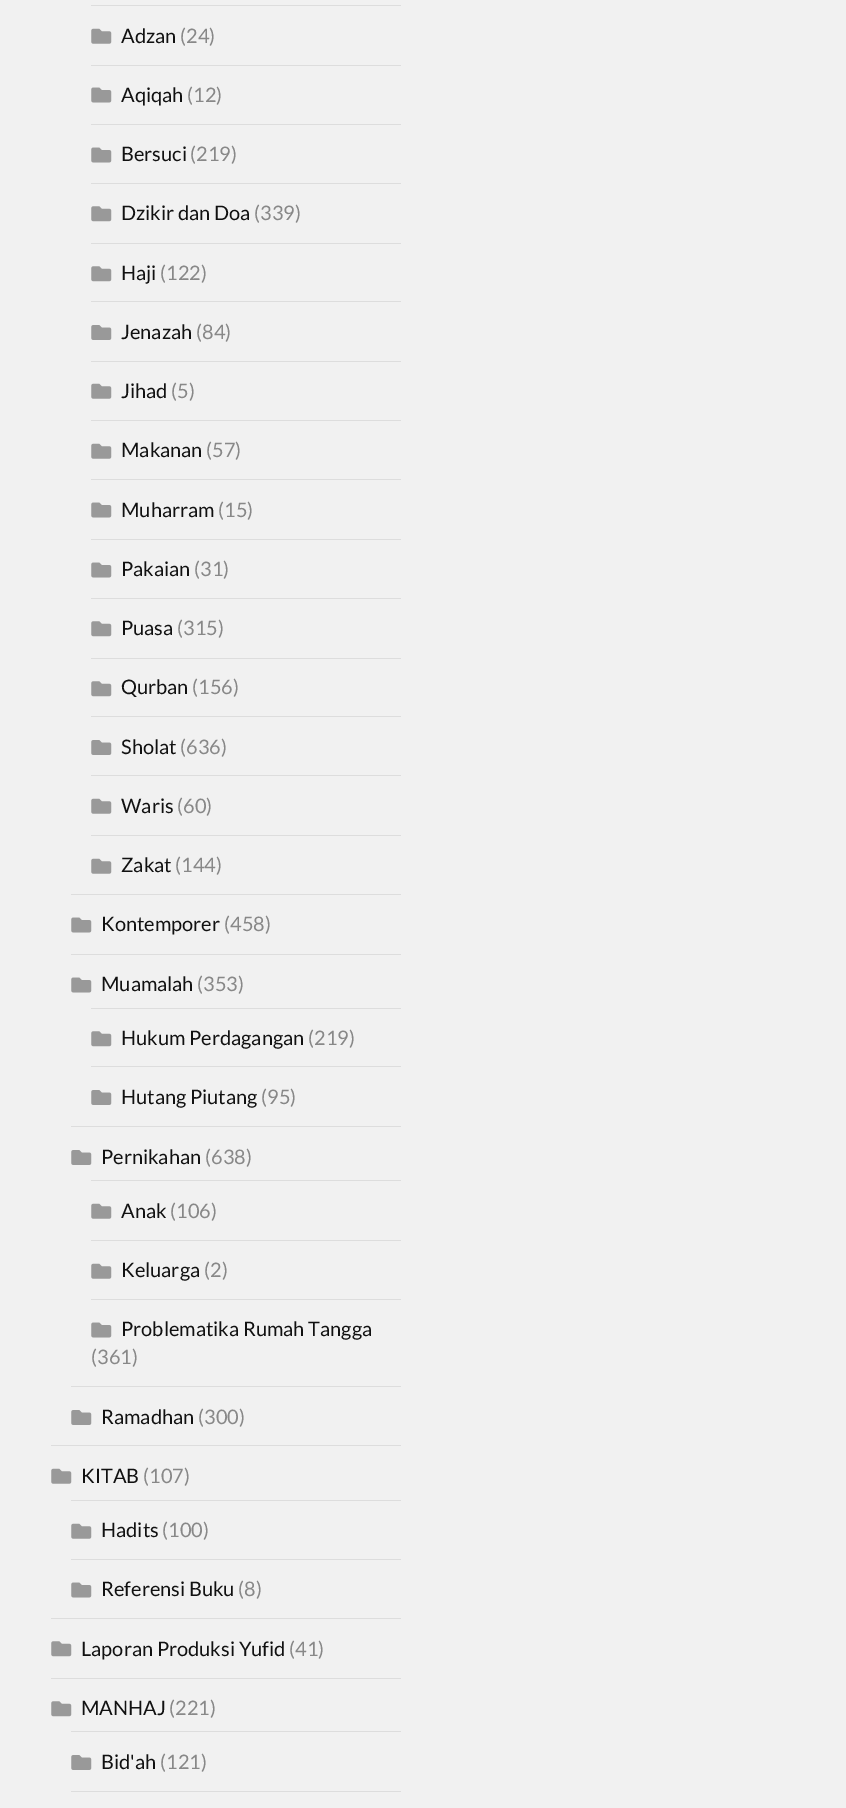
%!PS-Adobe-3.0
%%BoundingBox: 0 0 846 1808
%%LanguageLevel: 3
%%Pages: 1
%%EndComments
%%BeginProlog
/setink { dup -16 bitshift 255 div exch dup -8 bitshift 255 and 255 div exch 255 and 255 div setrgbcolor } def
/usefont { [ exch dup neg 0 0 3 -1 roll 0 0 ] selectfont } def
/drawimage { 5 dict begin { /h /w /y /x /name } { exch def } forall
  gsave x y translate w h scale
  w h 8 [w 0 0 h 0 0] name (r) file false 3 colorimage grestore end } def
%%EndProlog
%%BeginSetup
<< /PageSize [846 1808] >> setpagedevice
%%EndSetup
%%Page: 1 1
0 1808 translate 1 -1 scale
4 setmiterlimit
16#F1F1F1 setink
0 0 846 1808 rectfill
[
    [51 1445 350 1 16#DDDDDD]
    [71 894 330 1 16#DDDDDD]
    [91 5 310 1 16#DDDDDD]
    [91 65 310 1 16#DDDDDD]
] { aload pop setink rectfill } forall
(img1.raw) 91 28 21 16 drawimage
/Lato-Regular 20 usefont
16#111111 setink
121 43 moveto (Adzan) show
16#888888 setink
180 43 moveto (\(24\)) show
16#DDDDDD setink
91 124 310 1 rectfill
(img2.raw) 91 87 21 16 drawimage
16#111111 setink
121 102 moveto (Aqiqah) show
16#888888 setink
187 102 moveto (\(12\)) show
16#DDDDDD setink
91 183 310 1 rectfill
(img2.raw) 91 147 21 16 drawimage
16#111111 setink
121 161 moveto (Bersuci) show
16#888888 setink
190 161 moveto (\(219\)) show
16#DDDDDD setink
91 243 310 1 rectfill
(img3.raw) 91 206 21 16 drawimage
16#111111 setink
121 220 moveto (Dzikir dan Doa) show
16#888888 setink
254 220 moveto (\(339\)) show
16#DDDDDD setink
91 301 310 1 rectfill
(img3.raw) 91 266 21 16 drawimage
16#111111 setink
121 280 moveto (Haji) show
16#888888 setink
160 280 moveto (\(122\)) show
16#DDDDDD setink
91 361 310 1 rectfill
(img4.raw) 91 325 21 15 drawimage
16#111111 setink
121 339 moveto (Jenazah) show
16#888888 setink
196 339 moveto (\(84\)) show
16#DDDDDD setink
91 420 310 1 rectfill
(img1.raw) 91 383 21 16 drawimage
16#111111 setink
121 398 moveto (Jihad) show
16#888888 setink
171 398 moveto (\(5\)) show
16#DDDDDD setink
91 479 310 1 rectfill
(img1.raw) 91 443 21 16 drawimage
16#111111 setink
121 457 moveto (Makanan) show
16#888888 setink
206 457 moveto (\(57\)) show
16#DDDDDD setink
91 539 310 1 rectfill
(img2.raw) 91 502 21 16 drawimage
16#111111 setink
121 517 moveto (Muharram) show
16#888888 setink
218 517 moveto (\(15\)) show
16#DDDDDD setink
91 598 310 1 rectfill
(img2.raw) 91 562 21 16 drawimage
16#111111 setink
121 576 moveto (Pakaian) show
16#888888 setink
194 576 moveto (\(31\)) show
16#DDDDDD setink
91 658 310 1 rectfill
(img3.raw) 91 621 21 16 drawimage
16#111111 setink
121 635 moveto (Puasa) show
16#888888 setink
177 635 moveto (\(315\)) show
16#DDDDDD setink
91 716 310 1 rectfill
(img3.raw) 91 681 21 16 drawimage
16#111111 setink
121 694 moveto (Qurban) show
16#888888 setink
192 694 moveto (\(156\)) show
16#DDDDDD setink
91 775 310 1 rectfill
(img4.raw) 91 740 21 15 drawimage
16#111111 setink
121 754 moveto (Sholat) show
16#888888 setink
180 754 moveto (\(636\)) show
16#DDDDDD setink
91 835 310 1 rectfill
(img1.raw) 91 798 21 16 drawimage
16#111111 setink
121 813 moveto (Waris) show
16#888888 setink
177 813 moveto (\(60\)) show
(img1.raw) 91 858 21 16 drawimage
16#111111 setink
121 872 moveto (Zakat) show
16#888888 setink
175 872 moveto (\(144\)) show
16#DDDDDD setink
71 954 330 1 rectfill
(img2.raw) 71 917 21 16 drawimage
16#111111 setink
101 931 moveto (Kontemporer) show
16#888888 setink
224 931 moveto (\(458\)) show
16#DDDDDD setink
71 1126 330 1 rectfill
(img2.raw) 71 977 21 16 drawimage
16#111111 setink
101 991 moveto (Muamalah) show
16#888888 setink
197 991 moveto (\(353\)) show
16#DDDDDD setink
91 1008 310 1 rectfill
91 1066 310 1 rectfill
(img3.raw) 91 1031 21 16 drawimage
16#111111 setink
121 1045 moveto (Hukum Perdagangan) show
16#888888 setink
308 1045 moveto (\(219\)) show
(img4.raw) 91 1090 21 15 drawimage
16#111111 setink
121 1104 moveto (Hutang Piutang) show
16#888888 setink
261 1104 moveto (\(95\)) show
16#DDDDDD setink
71 1386 330 1 rectfill
(img4.raw) 71 1150 21 15 drawimage
16#111111 setink
101 1164 moveto (Pernikahan) show
16#888888 setink
205 1164 moveto (\(638\)) show
16#DDDDDD setink
91 1180 310 1 rectfill
91 1240 310 1 rectfill
(img1.raw) 91 1203 21 16 drawimage
16#111111 setink
121 1218 moveto (Anak) show
16#888888 setink
170 1218 moveto (\(106\)) show
16#DDDDDD setink
91 1299 310 1 rectfill
(img1.raw) 91 1263 21 16 drawimage
16#111111 setink
121 1277 moveto (Keluarga) show
16#888888 setink
204 1277 moveto (\(2\)) show
(img2.raw) 91 1322 21 16 drawimage
16#111111 setink
121 1336 moveto (Problematika Rumah Tangga) show
16#888888 setink
91 1364 moveto (\(361\)) show
(img4.raw) 71 1410 21 15 drawimage
16#111111 setink
101 1424 moveto (Ramadhan) show
16#888888 setink
198 1424 moveto (\(300\)) show
16#DDDDDD setink
51 1618 350 1 rectfill
(img1.raw) 51 1468 21 16 drawimage
16#111111 setink
81 1483 moveto (KITAB) show
16#888888 setink
143 1483 moveto (\(107\)) show
16#DDDDDD setink
71 1500 330 1 rectfill
71 1559 330 1 rectfill
(img1.raw) 71 1523 21 16 drawimage
16#111111 setink
101 1537 moveto (Hadits) show
16#888888 setink
162 1537 moveto (\(100\)) show
(img2.raw) 71 1582 21 16 drawimage
16#111111 setink
101 1596 moveto (Referensi Buku) show
16#888888 setink
238 1596 moveto (\(8\)) show
16#DDDDDD setink
51 1678 350 1 rectfill
(img3.raw) 51 1641 21 16 drawimage
16#111111 setink
81 1656 moveto (Laporan Produksi Yufid) show
16#888888 setink
289 1656 moveto (\(41\)) show
(img3.raw) 51 1701 21 16 drawimage
16#111111 setink
81 1715 moveto (MANHAJ) show
16#888888 setink
169 1715 moveto (\(221\)) show
16#DDDDDD setink
71 1731 330 1 rectfill
71 1791 330 1 rectfill
(img4.raw) 71 1755 21 15 drawimage
16#111111 setink
101 1769 moveto (Bid'ah) show
16#888888 setink
160 1769 moveto (\(121\)) show
showpage
%%EOF
